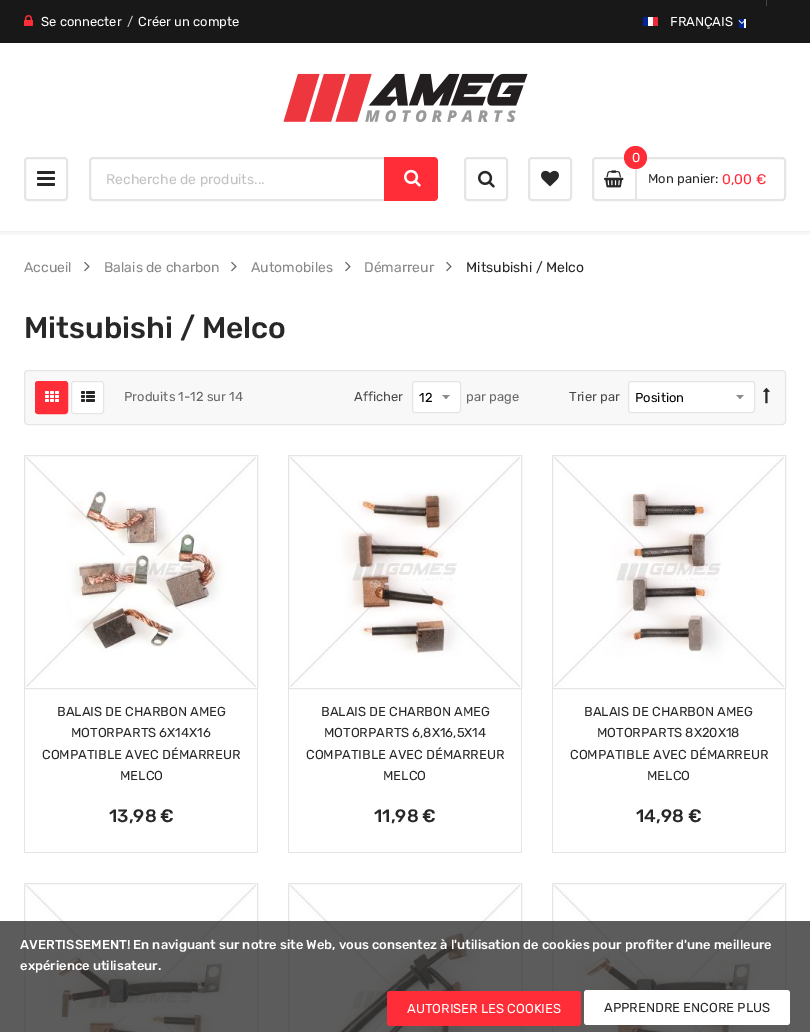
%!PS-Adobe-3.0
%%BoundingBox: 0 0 810 1032
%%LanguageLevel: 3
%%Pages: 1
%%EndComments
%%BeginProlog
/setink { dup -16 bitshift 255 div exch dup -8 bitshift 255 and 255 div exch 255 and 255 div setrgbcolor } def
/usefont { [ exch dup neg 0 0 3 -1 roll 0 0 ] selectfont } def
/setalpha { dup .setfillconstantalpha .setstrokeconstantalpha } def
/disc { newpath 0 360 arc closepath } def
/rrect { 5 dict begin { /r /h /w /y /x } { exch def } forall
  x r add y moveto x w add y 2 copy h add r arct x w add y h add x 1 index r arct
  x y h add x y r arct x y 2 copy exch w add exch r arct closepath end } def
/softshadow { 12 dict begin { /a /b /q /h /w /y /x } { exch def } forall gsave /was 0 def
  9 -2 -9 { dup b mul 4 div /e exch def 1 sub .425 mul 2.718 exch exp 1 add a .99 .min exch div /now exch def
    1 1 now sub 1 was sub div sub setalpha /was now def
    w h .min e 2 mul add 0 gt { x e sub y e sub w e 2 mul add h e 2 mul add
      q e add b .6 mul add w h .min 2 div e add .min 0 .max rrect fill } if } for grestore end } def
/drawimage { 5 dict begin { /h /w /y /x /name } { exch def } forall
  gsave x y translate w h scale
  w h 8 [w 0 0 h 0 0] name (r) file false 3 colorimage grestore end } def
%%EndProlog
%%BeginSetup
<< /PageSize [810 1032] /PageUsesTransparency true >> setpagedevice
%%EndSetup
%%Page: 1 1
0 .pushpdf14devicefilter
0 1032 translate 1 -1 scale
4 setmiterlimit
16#FFFFFF setink
0 0 810 1032 rectfill
gsave
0 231 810 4 rectclip
16#000000 setink
0 0 810 231 0 5 0.1 softshadow
grestore
16#181818 setink
0 0 810 43 rectfill
(img1.raw) 24 15 9 11 drawimage
/Rubik-Regular 13 usefont
16#FFFFFF setink
41 26 moveto (Se connecter) show
16#CCCCCC setink
127 26 moveto (/) show
16#FFFFFF setink
138 26 moveto (Créer un compte) show
[
    [766 0 1 6 16#464646]
    [653 17 5 9 16#ED2939]
    [648 17 5 9 16#FFFFFF]
    [643 17 5 9 16#002395]
    [744 19 2 9 16#FFFFFF]
    [739 19 5 9 16#002395]
] { aload pop setink rectfill } forall
16#FFFFFF setink
670 26 moveto (FRANÇAIS) show
(img2.raw) 738 20 6 4 drawimage
(img3.raw) 283 73 245 49 drawimage
16#E5E5E5 setink
2 setlinewidth
25 158 42 42 3 rrect stroke
(img4.raw) 37 171 18 15 drawimage
93 158 moveto 385 158 lineto 385 200 lineto 93 200 lineto 91.5 200 90 198.5 90 197 curveto 90 161 lineto 90 159.5 91.5 158 93 158 curveto closepath stroke
/Rubik-Regular 14 usefont
16#C2C2C2 setink
106 184 moveto (Recherche de produits...) show
16#FF2D37 setink
384 157 moveto 434 157 lineto 436 157 438 159 438 161 curveto 438 197 lineto 438 199 436 201 434 201 curveto 384 201 lineto closepath fill
(img5.raw) 404 169 17 18 drawimage
16#E5E5E5 setink
465 158 42 42 3 rrect stroke
(img6.raw) 478 170 17 18 drawimage
529 158 42 42 3 rrect stroke
(img7.raw) 541 170 18 17 drawimage
593 158 192 42 3 rrect stroke
635 168 2 33 rectfill
(img8.raw) 604 170 20 18 drawimage
16#FF2D37 setink
635.5 157.5 11.5 disc fill
/Rubik-Regular 13 usefont
16#FFFFFF setink
632 162 moveto (0) show
/Rubik-Regular 14 usefont
16#FF2D37 setink
722 184 moveto (0,00 €) show
/Rubik-Regular 13 usefont
16#282828 setink
648 183 moveto (Mon panier:) show
/Rubik-Regular 14 usefont
16#888888 setink
24 272 moveto (Accueil) show
(img9.raw) 84 261 6 11 drawimage
104 272 moveto (Balais de charbon) show
(img9.raw) 231 261 6 11 drawimage
251 272 moveto (Automobiles) show
(img9.raw) 345 261 6 11 drawimage
364 272 moveto (Démarreur) show
(img9.raw) 446 261 6 11 drawimage
16#282828 setink
466 272 moveto (Mitsubishi / Melco) show
/Rubik-Medium 30 usefont
24 338 moveto (Mitsubishi / Melco) show
16#F8F8F8 setink
24.5 370.5 761 54 3.5 rrect gsave fill grestore
16#E5E5E5 setink
1 setlinewidth
stroke
16#FF2D37 setink
35.5 381.5 32 32 2.5 rrect gsave fill grestore
stroke
(img10.raw) 45 391 14 11 drawimage
16#FFFFFF setink
71.5 381.5 32 32 2.5 rrect gsave fill grestore
16#E5E5E5 setink
stroke
(img11.raw) 81 391 14 11 drawimage
/Rubik-Regular 13 usefont
16#686868 setink
124 401 moveto (Produits 1-12 sur 14) show
16#484848 setink
354 401 moveto (Afficher) show
16#FFFFFF setink
412 381 49 32 3 rrect fill
(img12.raw) 442 395 8 4 drawimage
16#E5E5E5 setink
412.5 381.5 48 31 2.5 rrect stroke
16#000000 setink
419 402 moveto (12) show
16#686868 setink
466 401 moveto (par page) show
16#484848 setink
569 401 moveto (Trier par) show
16#FFFFFF setink
628 381 127 32 3 rrect fill
(img12.raw) 736 395 8 4 drawimage
16#E5E5E5 setink
628.5 381.5 126 31 2.5 rrect stroke
16#000000 setink
635 402 moveto (Position) show
(img13.raw) 763 387 7 17 drawimage
16#E5E5E5 setink
24.5 455.5 233 233 rectstroke
(img14.raw) 26 457 230 230 drawimage
[
    [257 689 1 164 16#E5E5E5]
    [24 852 234 1 16#E5E5E5]
    [24 689 1 164 16#E5E5E5]
] { aload pop setink rectfill } forall
16#282828 setink
[
    [(BALAIS DE CHARBON AMEG) 57 716]
    [(MOTORPARTS 6X14X16) 71 737]
    [(COMPATIBLE AVEC DÉMARREUR) 42 759]
    [(MELCO) 120 780]
] { aload pop moveto show } forall
/Rubik-Medium 18 usefont
109 822 moveto (13,98 €) show
16#E5E5E5 setink
288.5 455.5 233 233 rectstroke
(img15.raw) 290 457 230 230 drawimage
[
    [521 689 1 164 16#E5E5E5]
    [288 852 234 1 16#E5E5E5]
    [288 689 1 164 16#E5E5E5]
] { aload pop setink rectfill } forall
/Rubik-Regular 13 usefont
16#282828 setink
[
    [(BALAIS DE CHARBON AMEG) 321 716]
    [(MOTORPARTS 6,8X16,5X14) 324 737]
    [(COMPATIBLE AVEC DÉMARREUR) 306 759]
    [(MELCO) 383 780]
] { aload pop moveto show } forall
/Rubik-Medium 18 usefont
374 822 moveto (11,98 €) show
16#E5E5E5 setink
552.5 455.5 233 233 rectstroke
(img16.raw) 554 457 230 230 drawimage
[
    [785 689 1 164 16#E5E5E5]
    [552 852 234 1 16#E5E5E5]
    [552 689 1 164 16#E5E5E5]
] { aload pop setink rectfill } forall
/Rubik-Regular 13 usefont
16#282828 setink
[
    [(BALAIS DE CHARBON AMEG) 584 716]
    [(MOTORPARTS 8X20X18) 597 737]
    [(COMPATIBLE AVEC DÉMARREUR) 570 759]
    [(MELCO) 647 780]
] { aload pop moveto show } forall
/Rubik-Medium 18 usefont
636 822 moveto (14,98 €) show
16#E5E5E5 setink
24.5 883.5 233 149 rectstroke
(img17.raw) 26 885 230 147 drawimage
288.5 883.5 233 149 rectstroke
(img18.raw) 290 885 230 147 drawimage
552.5 883.5 233 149 rectstroke
(img19.raw) 554 885 230 147 drawimage
0.8 setalpha
16#333333 setink
0 921 810 111 rectfill
/Rubik-Medium 13 usefont
1 setalpha
16#FFFFFF setink
20 949 moveto (AVERTISSEMENT! En naviguant sur notre site Web, vous consentez à l'utilisation de cookies pour profiter d'une meilleure) show
20 970 moveto (expérience utilisateur.) show
16#FF2D37 setink
387 991 194 35 3 rrect fill
/Rubik-Regular 13 usefont
16#FFFFFF setink
407 1013 moveto (AUTORISER LES COOKIES) show
584 990 206 35 3 rrect fill
16#282828 setink
604 1012 moveto (APPRENDRE ENCORE PLUS) show
.poppdf14devicefilter showpage
%%EOF
